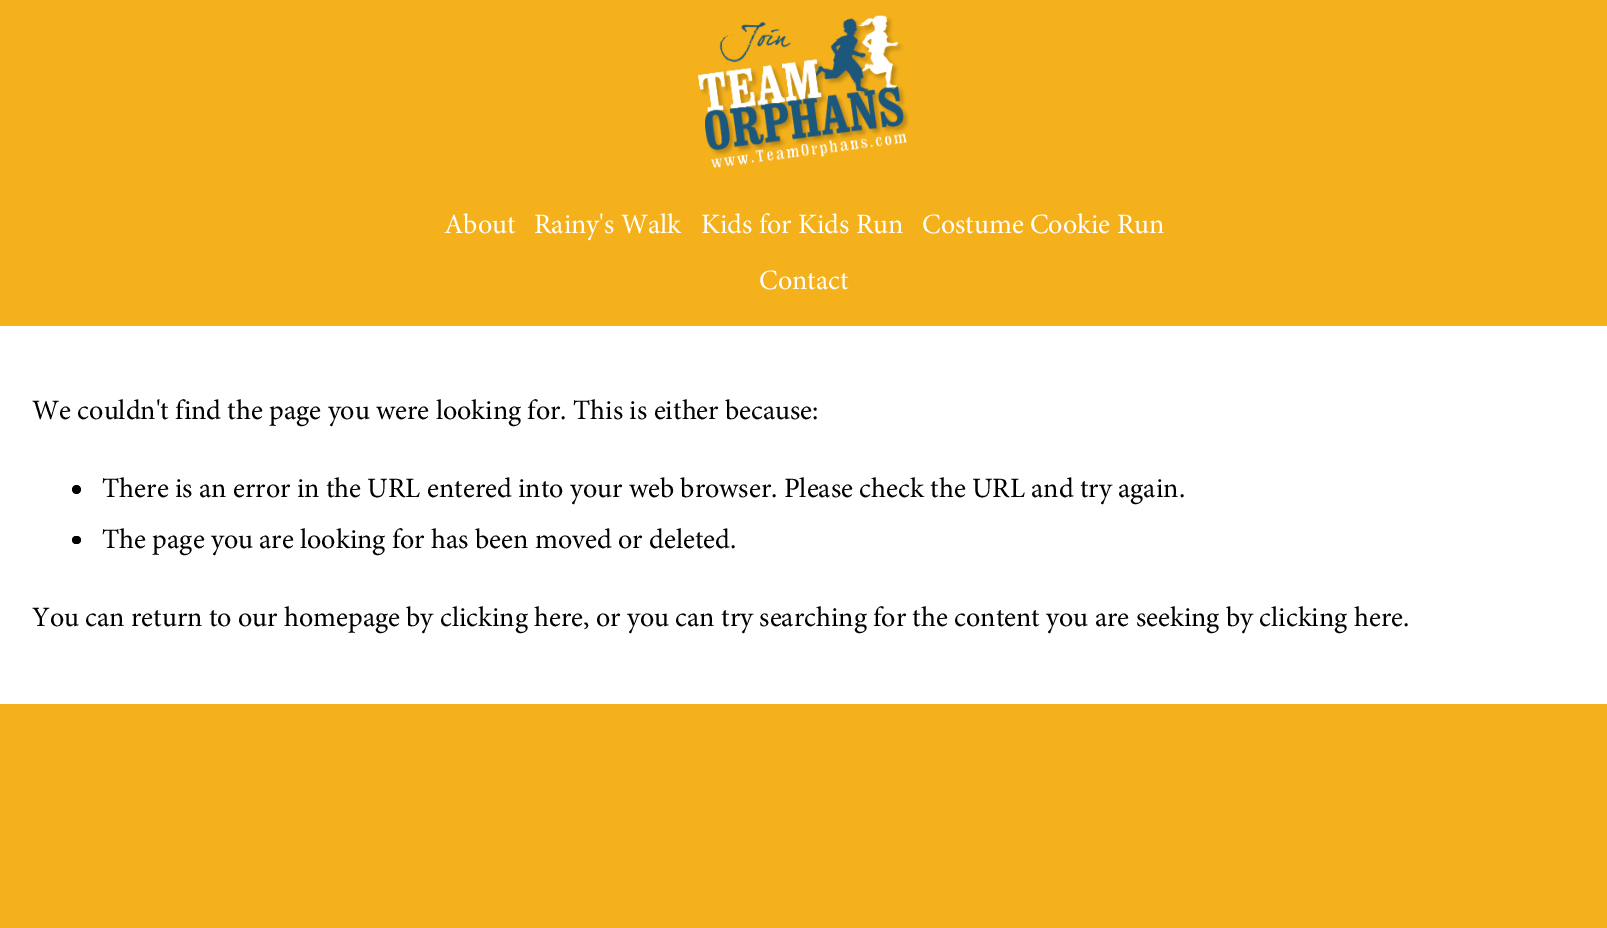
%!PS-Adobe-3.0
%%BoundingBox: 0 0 1607 928
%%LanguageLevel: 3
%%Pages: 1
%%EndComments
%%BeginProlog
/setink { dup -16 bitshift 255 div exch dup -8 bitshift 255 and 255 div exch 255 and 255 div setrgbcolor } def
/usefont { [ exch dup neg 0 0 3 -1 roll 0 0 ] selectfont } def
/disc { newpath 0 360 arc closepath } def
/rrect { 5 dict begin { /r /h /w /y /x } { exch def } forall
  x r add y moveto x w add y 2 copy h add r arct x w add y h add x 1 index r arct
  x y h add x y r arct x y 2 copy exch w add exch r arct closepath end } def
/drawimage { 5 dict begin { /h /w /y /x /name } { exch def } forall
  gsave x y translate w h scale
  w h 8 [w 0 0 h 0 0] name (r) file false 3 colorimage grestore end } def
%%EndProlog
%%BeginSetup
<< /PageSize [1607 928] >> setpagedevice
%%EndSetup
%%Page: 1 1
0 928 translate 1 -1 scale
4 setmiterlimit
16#FFFFFF setink
0 0 1607 928 rectfill
16#F4B11C setink
0 0 1607 326 rectfill
(img1.raw) 698 15 211 154 drawimage
/Minion-Regular 28 usefont
16#FFFFFF setink
[
    [(About) 444 233]
    [(Rainy's Walk) 534 233]
    [(Kids for Kids Run) 701 233]
    [(Costume Cookie Run) 922 233]
    [(Contact) 759 289]
] { aload pop moveto show } forall
16#000000 setink
32 419 moveto (We couldn't find the page you were looking for. This is either because:) show
76.5 489.5 4.5 disc fill
102 497 moveto (There is an error in the URL entered into your web browser. Please check the URL and try again.) show
72 536 9 8 4 rrect fill
102 548 moveto (The page you are looking for has been moved or deleted.) show
32 626 moveto (You can return to our homepage by clicking here, or you can try searching for the content you are seeking by clicking here.) show
16#F4B11C setink
0 704 1607 224 rectfill
showpage
%%EOF
